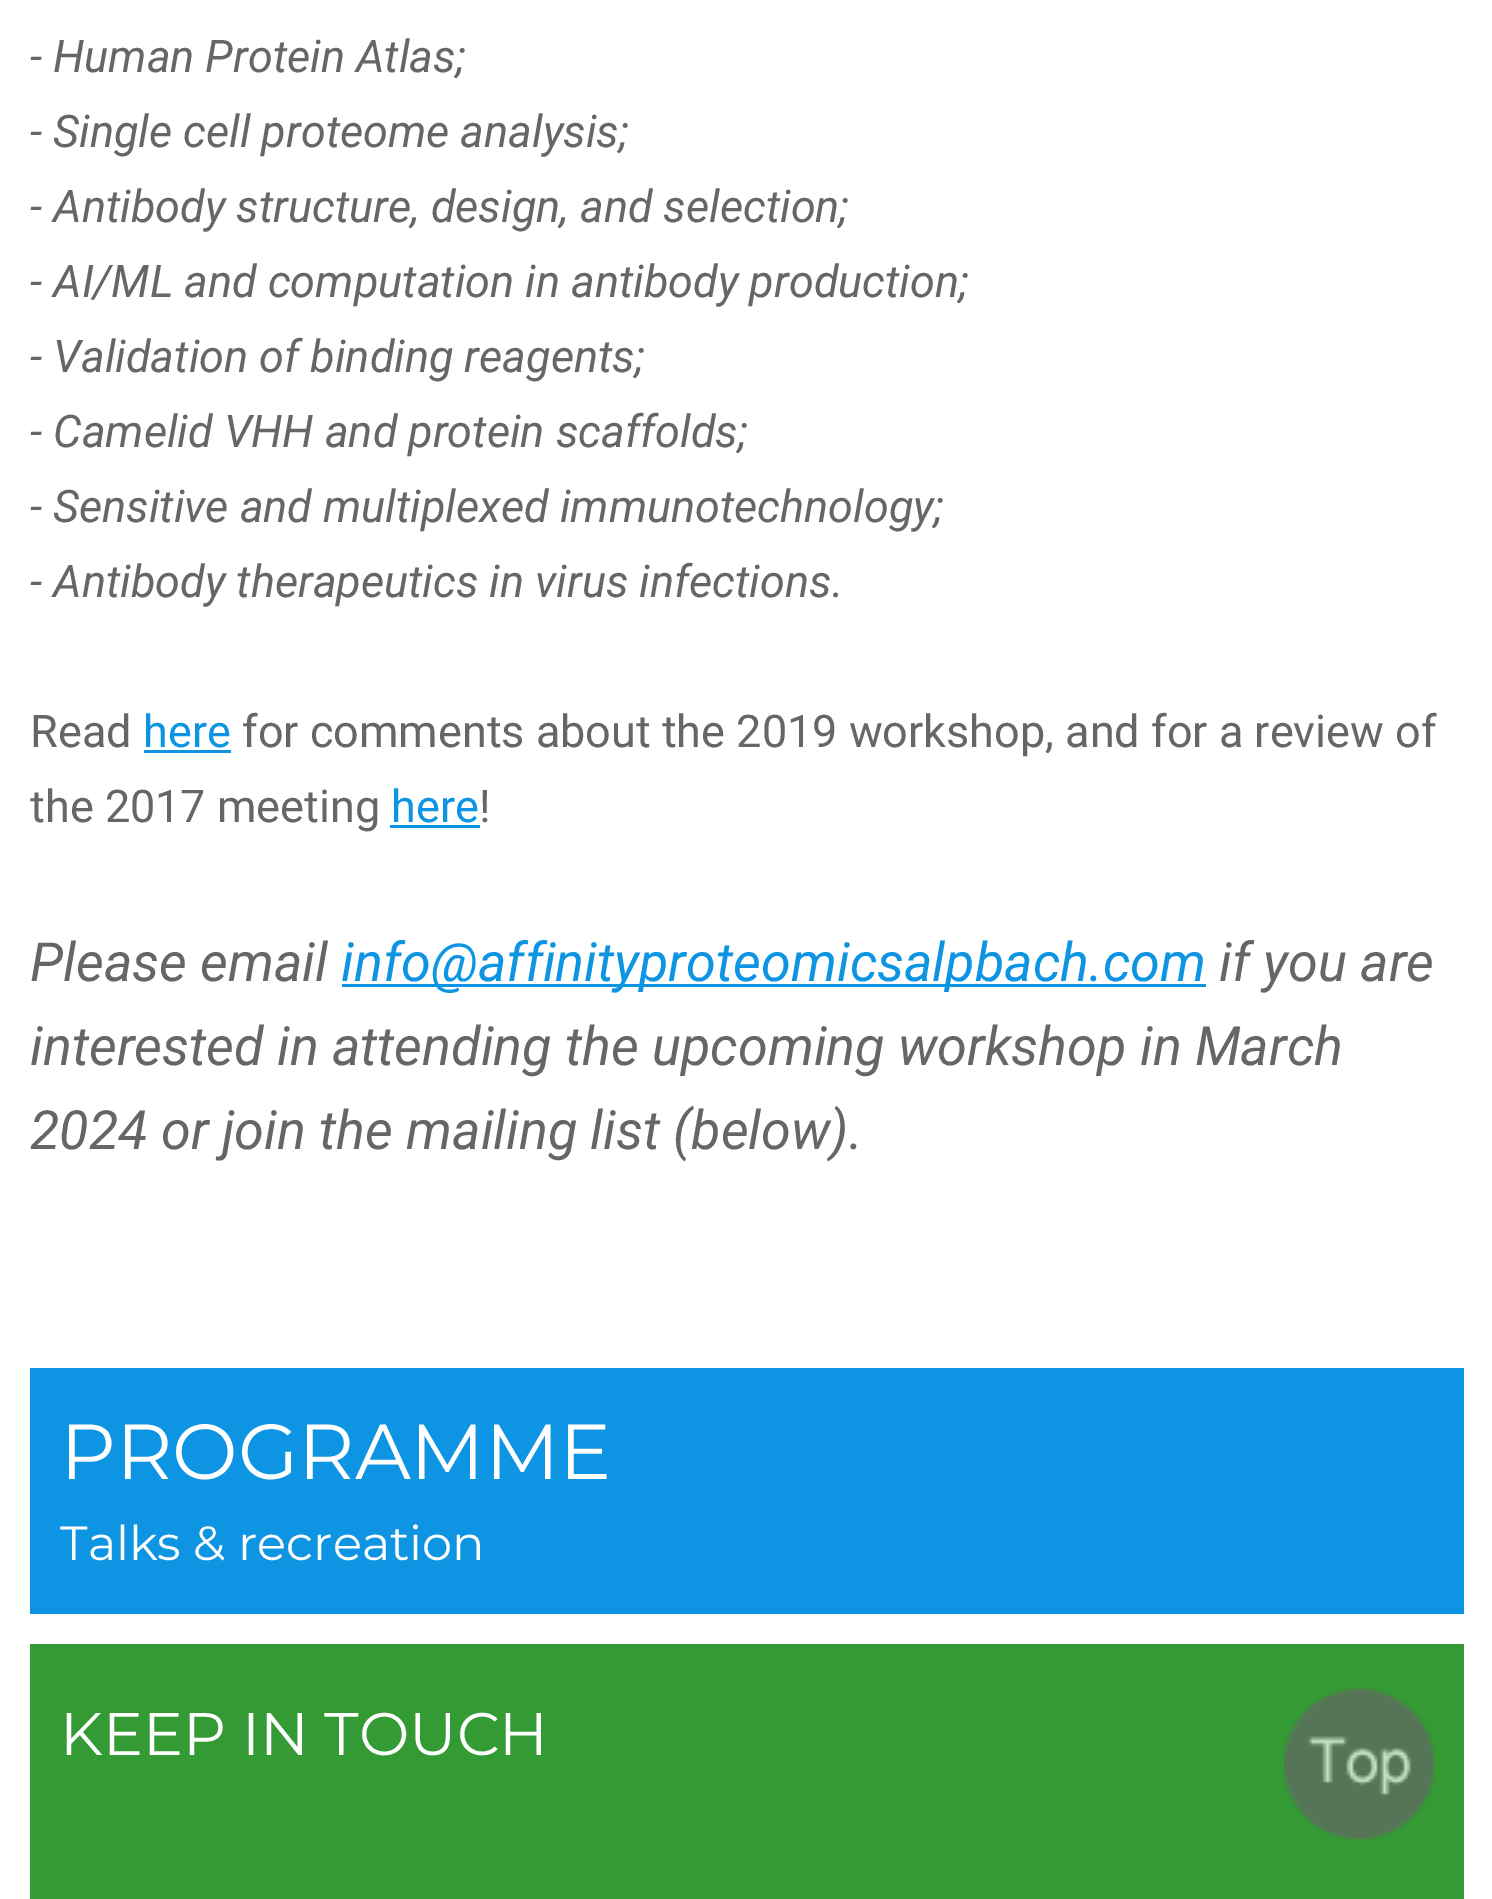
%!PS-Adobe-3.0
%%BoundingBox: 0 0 1492 1899
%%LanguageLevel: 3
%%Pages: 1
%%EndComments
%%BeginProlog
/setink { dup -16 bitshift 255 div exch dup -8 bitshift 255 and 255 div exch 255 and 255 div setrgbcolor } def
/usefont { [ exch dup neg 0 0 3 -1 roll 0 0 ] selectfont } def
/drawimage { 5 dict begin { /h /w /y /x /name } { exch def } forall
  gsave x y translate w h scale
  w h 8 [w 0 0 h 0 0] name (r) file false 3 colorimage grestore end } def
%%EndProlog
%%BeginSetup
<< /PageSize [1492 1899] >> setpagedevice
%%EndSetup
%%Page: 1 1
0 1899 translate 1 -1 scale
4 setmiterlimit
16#FFFFFF setink
0 0 1492 1899 rectfill
/Roboto-Italic 45 usefont
16#666666 setink
[
    [(- Human Protein Atlas;) 30 72]
    [(- Single cell proteome analysis;) 30 147]
    [(- Antibody structure, design, and selection;) 30 222]
    [(- AI/ML and computation in antibody production;) 30 297]
    [(- Validation of binding reagents;) 30 372]
    [(- Camelid VHH and protein scaffolds;) 30 447]
    [(- Sensitive and multiplexed immunotechnology;) 30 522]
    [(- Antibody therapeutics in virus infections.) 30 597]
] { aload pop moveto show } forall
/Roboto-Regular 45 usefont
30 747 moveto (Read) show
16#0D94E2 setink
143 747 moveto (here) show
144 750 87 3 rectfill
16#666666 setink
242 747 moveto (for comments about the 2019 workshop, and for a review of) show
30 822 moveto (the 2017 meeting) show
16#0D94E2 setink
391 822 moveto (here) show
390 825 90 3 rectfill
16#666666 setink
479 822 moveto (!) show
/Roboto-Italic 54 usefont
30 981 moveto (Please email) show
16#0D94E2 setink
342 984 864 3 rectfill
341 981 moveto (info@affinityproteomicsalpbach.com) show
16#666666 setink
[
    [(if you are) 1219 981]
    [(interested in attending the upcoming workshop in March) 30 1065]
    [(2024 or join the mailing list \(below\).) 30 1149]
] { aload pop moveto show } forall
16#0D94E2 setink
30 1368 1434 246 rectfill
/Montserrat-Regular 78 usefont
16#FFFFFF setink
60 1479 moveto (PROGRAMME) show
/Montserrat-Regular 48 usefont
60 1560 moveto (Talks & recreation) show
16#349A34 setink
30 1644 1434 255 rectfill
/Montserrat-Regular 60 usefont
16#FFFFFF setink
60 1755 moveto (KEEP IN TOUCH) show
(img1.raw) 1284 1689 150 150 drawimage
showpage
%%EOF
